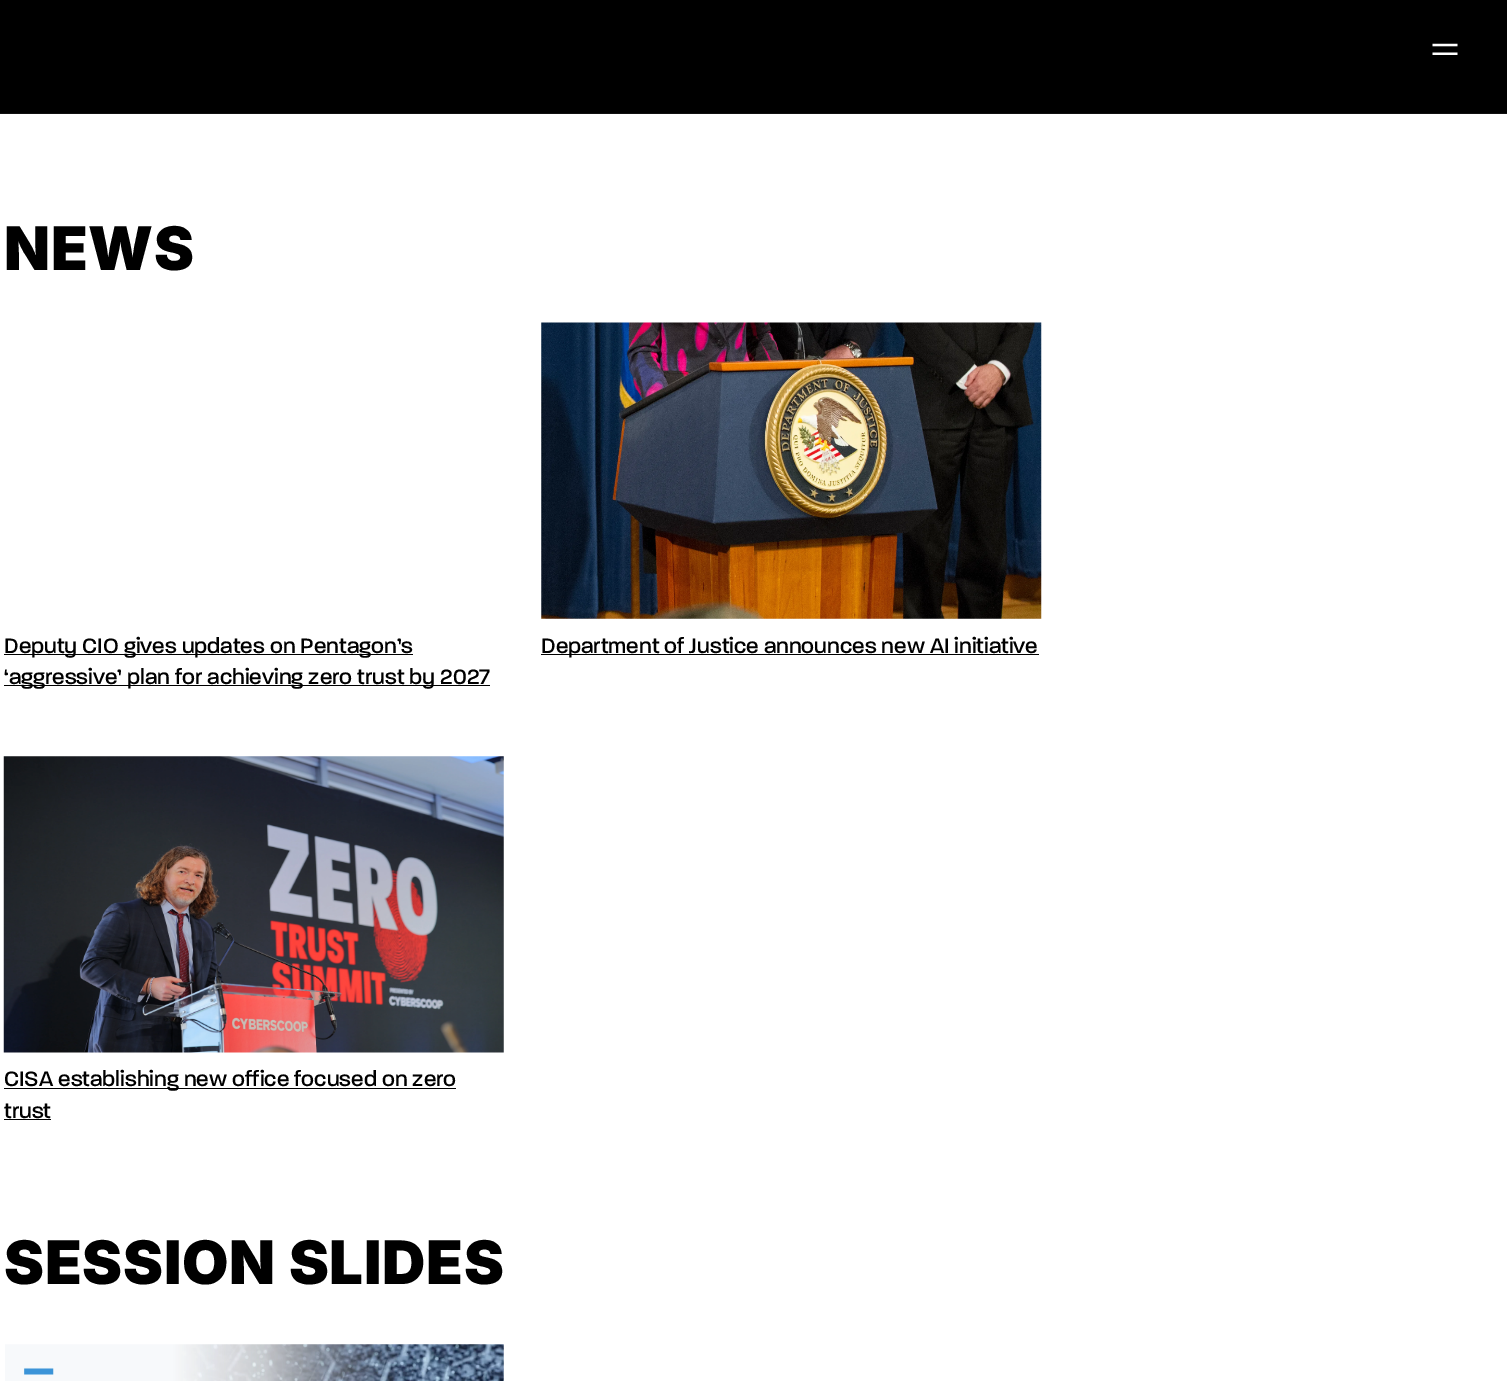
%!PS-Adobe-3.0
%%BoundingBox: 0 0 1507 1381
%%LanguageLevel: 3
%%Pages: 1
%%EndComments
%%BeginProlog
/setink { dup -16 bitshift 255 div exch dup -8 bitshift 255 and 255 div exch 255 and 255 div setrgbcolor } def
/usefont { [ exch dup neg 0 0 3 -1 roll 0 0 ] selectfont } def
/drawimage { 5 dict begin { /h /w /y /x /name } { exch def } forall
  gsave x y translate w h scale
  w h 8 [w 0 0 h 0 0] name (r) file false 3 colorimage grestore end } def
%%EndProlog
%%BeginSetup
<< /PageSize [1507 1381] >> setpagedevice
%%EndSetup
%%Page: 1 1
0 1381 translate 1 -1 scale
4 setmiterlimit
16#FFFFFF setink
0 0 1507 1381 rectfill
16#000000 setink
0 0 1507 113 rectfill
16#101010 setink
0 113 1507 1 rectfill
(img1.raw) 1432 43 26 12 drawimage
/Inter-Black 60 usefont
16#000000 setink
4 270 moveto 0.75 0 (NEWS) ashow
4 654 409 1 rectfill
/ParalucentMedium-Medium 22.5 usefont
4 653 moveto (Deputy CIO gives updates on Pentagon’s) show
4 685 486 1 rectfill
4 684 moveto (‘aggressive’ plan for achieving zero trust by 2027) show
(img2.raw) 541 322 501 297 drawimage
541 654 498 1 rectfill
541 653 moveto (Department of Justice announces new AI initiative) show
(img3.raw) 3 756 501 297 drawimage
4 1088 452 1 rectfill
4 1086 moveto (CISA establishing new office focused on zero) show
4 1118 moveto (trust) show
4 1119 47 1 rectfill
/Inter-Black 60 usefont
4 1284 moveto 0.75 0 (SESSION SLIDES) ashow
(img4.raw) 5 1344 499 37 drawimage
showpage
%%EOF
